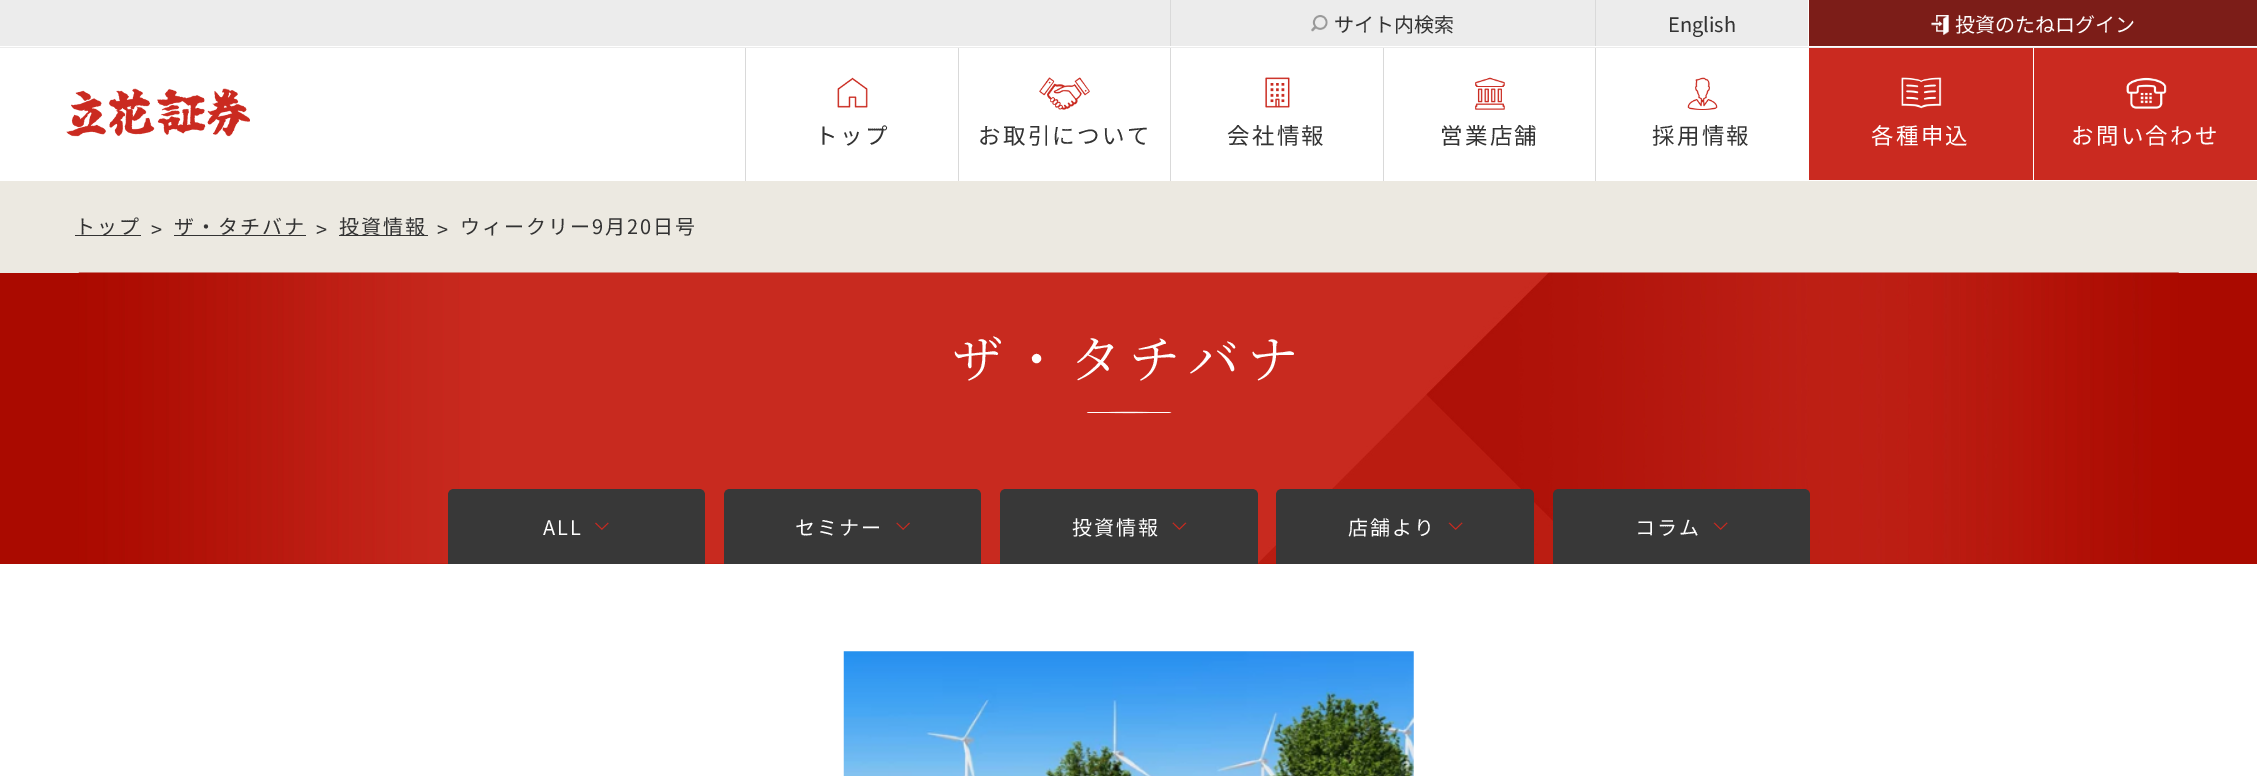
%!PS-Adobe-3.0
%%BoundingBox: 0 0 2257 776
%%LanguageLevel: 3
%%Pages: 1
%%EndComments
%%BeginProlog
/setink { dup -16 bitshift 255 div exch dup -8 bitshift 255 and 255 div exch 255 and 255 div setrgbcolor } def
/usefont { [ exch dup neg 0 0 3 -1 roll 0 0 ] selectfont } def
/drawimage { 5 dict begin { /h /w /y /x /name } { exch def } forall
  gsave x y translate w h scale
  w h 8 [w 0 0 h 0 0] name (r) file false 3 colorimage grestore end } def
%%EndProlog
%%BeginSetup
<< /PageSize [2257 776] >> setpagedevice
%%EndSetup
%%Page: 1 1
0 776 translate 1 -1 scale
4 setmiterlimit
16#FFFFFF setink
0 0 2257 776 rectfill
[
    [0 0 2257 48 16#ECECEC]
    [0 46 2257 1 16#FFFFFF]
    [1170 0 1 46 16#D9D9D9]
] { aload pop setink rectfill } forall
(img1.raw) 1311 15 17 17 drawimage
/NotoSansJP-Regular 20 usefont
16#333333 setink
1334 32 moveto (サイト内検索) show
16#D9D9D9 setink
1595 0 1 46 rectfill
16#333333 setink
1668 32 moveto (English) show
16#FFFFFF setink
1808 0 1 46 rectfill
16#7C1D18 setink
1809 0 448 46 rectfill
(img2.raw) 1931 15 18 20 drawimage
16#FFFFFF setink
1955 32 moveto (投資のたねログイン) show
(img3.raw) 66 88 184 49 drawimage
16#D9D9D9 setink
745 48 1 133 rectfill
(img4.raw) 837 77 31 31 drawimage
/NotoSansJP-Regular 22.5 usefont
16#333333 setink
815 144 moveto 2.25 0 (トップ) ashow
16#D9D9D9 setink
958 48 1 133 rectfill
(img5.raw) 1039 77 51 33 drawimage
16#333333 setink
978 144 moveto 2.25 0 (お取引について) ashow
16#D9D9D9 setink
1170 48 1 133 rectfill
(img6.raw) 1265 77 25 31 drawimage
16#333333 setink
1227 144 moveto 2.25 0 (会社情報) ashow
16#D9D9D9 setink
1383 48 1 133 rectfill
(img7.raw) 1475 77 30 33 drawimage
16#333333 setink
1440 144 moveto 2.25 0 (営業店舗) ashow
16#D9D9D9 setink
1595 48 1 133 rectfill
(img8.raw) 1687 77 31 33 drawimage
16#333333 setink
1652 144 moveto 2.25 0 (採⽤情報) ashow
16#CA2A20 setink
1809 48 224 132 rectfill
(img9.raw) 1901 77 41 32 drawimage
16#FFFFFF setink
1871 144 moveto 2.25 0 (各種申込) ashow
16#CA2A20 setink
2034 48 223 132 rectfill
(img10.raw) 2126 77 41 32 drawimage
16#FFFFFF setink
2071 144 moveto 2.25 0 (お問い合わせ) ashow
16#ECE9E1 setink
0 181 2257 92 rectfill
16#333333 setink
75 235 66 1 rectfill
/NotoSansJP-Regular 20 usefont
75 234 moveto 2 0 (トップ) ashow
151 237 moveto 2 0 (>) ashow
174 235 132 1 rectfill
174 234 moveto 2 0 (ザ・タチバナ) ashow
316 237 moveto 2 0 (>) ashow
339 235 89 1 rectfill
339 234 moveto 2 0 (投資情報) ashow
437 237 moveto 2 0 (>) ashow
460 234 moveto 2 0 (ウィークリー9月20日号) ashow
16#AA0A00 setink
0 273 2257 291 rectfill
(img11.raw) 78 272 2101 292 drawimage
(img12.raw) 1086 411 86 3 drawimage
/NotoSerifJP-Regular 51.25 usefont
16#FFFFFF setink
952 378 moveto 7.75 0 (ザ・タチバナ) ashow
16#383838 setink
454 489 moveto 699 489 lineto 702.5 489 705 491.5 705 495 curveto 705 564 lineto 448 564 lineto 448 495 lineto 448 491.5 450.5 489 454 489 curveto closepath fill
/NotoSansJP-Regular 20 usefont
16#FFFFFF setink
543 535 moveto 2 0 (ALL) ashow
(img13.raw) 595 522 14 8 drawimage
16#383838 setink
730 489 moveto 975 489 lineto 978.5 489 981 491.5 981 495 curveto 981 564 lineto 724 564 lineto 724 495 lineto 724 491.5 726.5 489 730 489 curveto closepath fill
16#FFFFFF setink
795 535 moveto 2 0 (セミナー) ashow
(img14.raw) 896 522 14 8 drawimage
16#383838 setink
1006 489 moveto 1252 489 lineto 1255.5 489 1258 491.5 1258 495 curveto 1258 564 lineto 1000 564 lineto 1000 495 lineto 1000 491.5 1002.5 489 1006 489 curveto closepath fill
16#FFFFFF setink
1072 535 moveto 2 0 (投資情報) ashow
(img15.raw) 1172 522 15 8 drawimage
16#383838 setink
1282 489 moveto 1528 489 lineto 1531.5 489 1534 491.5 1534 495 curveto 1534 564 lineto 1276 564 lineto 1276 495 lineto 1276 491.5 1278.5 489 1282 489 curveto closepath fill
16#FFFFFF setink
1348 535 moveto 2 0 (店舗より) ashow
(img16.raw) 1448 522 15 8 drawimage
16#383838 setink
1559 489 moveto 1804 489 lineto 1807.5 489 1810 491.5 1810 495 curveto 1810 564 lineto 1553 564 lineto 1553 495 lineto 1553 491.5 1555.5 489 1559 489 curveto closepath fill
16#FFFFFF setink
1635 535 moveto 2 0 (コラム) ashow
(img16.raw) 1713 522 15 8 drawimage
(img17.raw) 843 651 571 125 drawimage
showpage
%%EOF
